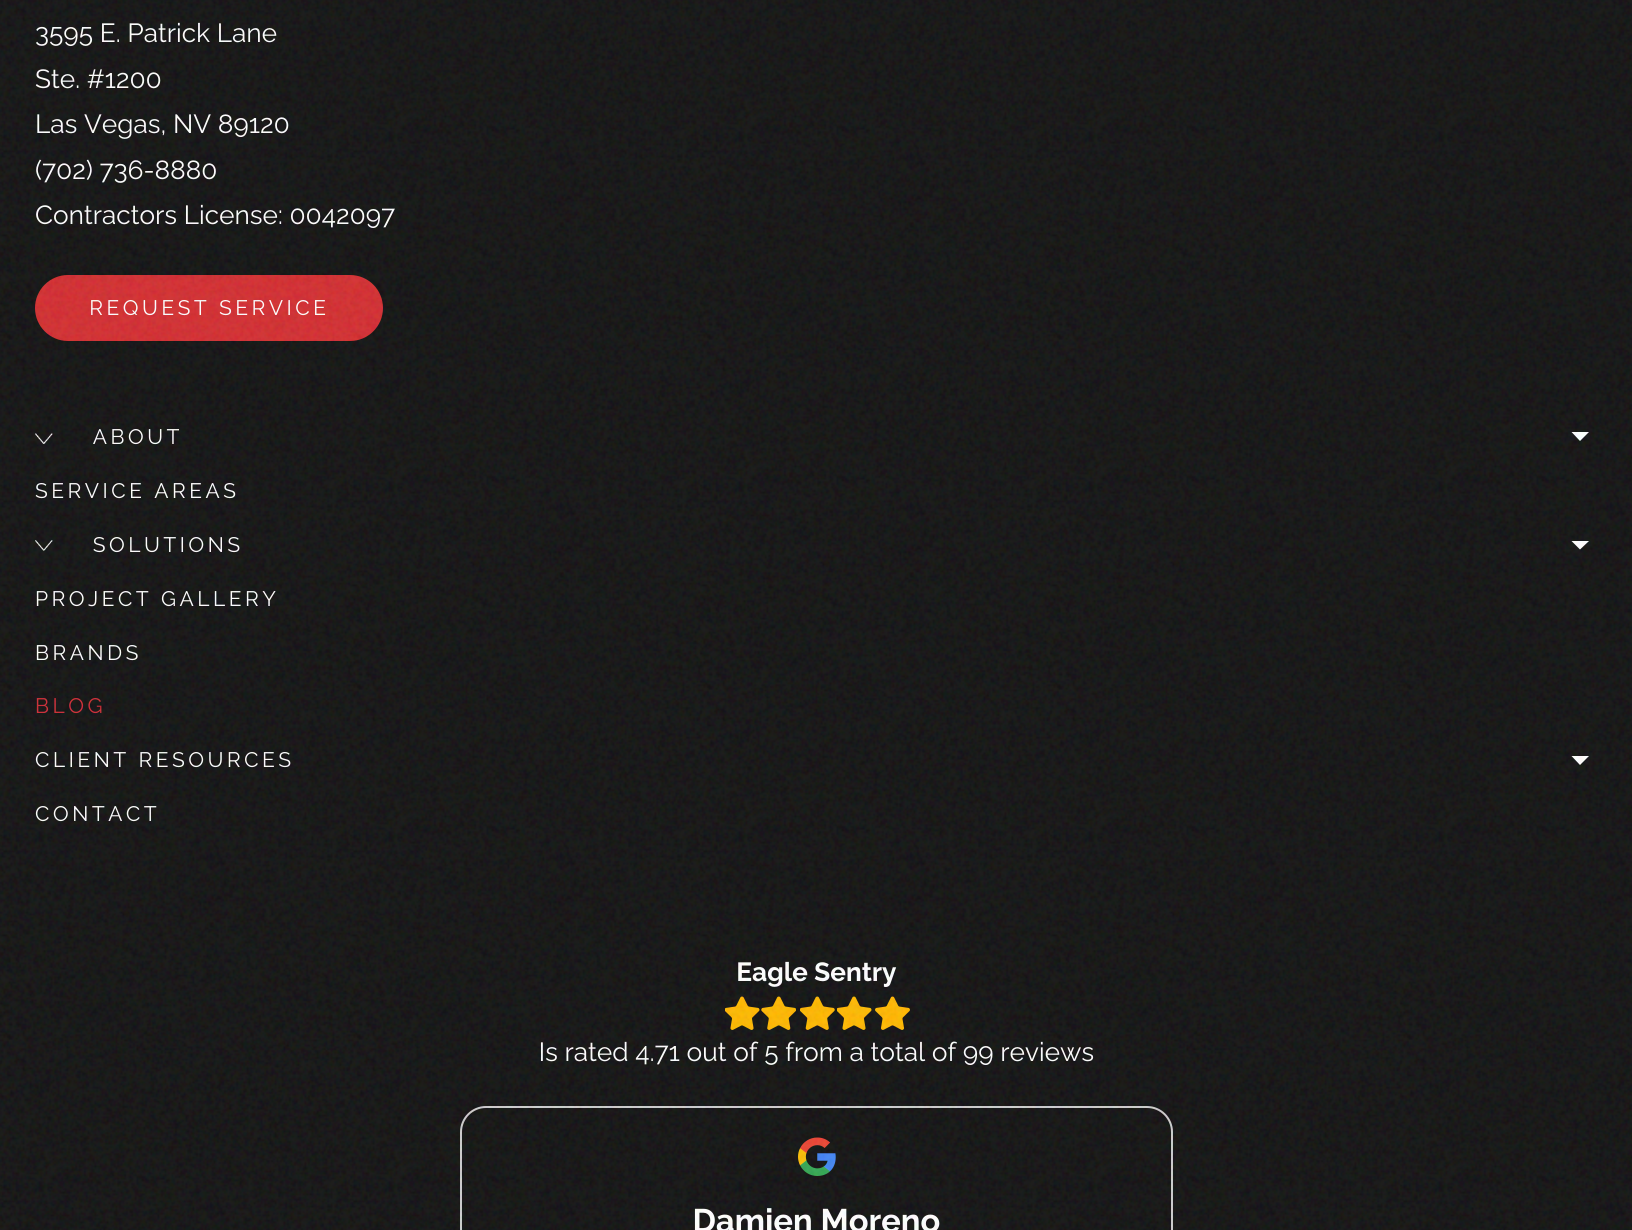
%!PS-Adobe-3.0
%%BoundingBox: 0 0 1632 1230
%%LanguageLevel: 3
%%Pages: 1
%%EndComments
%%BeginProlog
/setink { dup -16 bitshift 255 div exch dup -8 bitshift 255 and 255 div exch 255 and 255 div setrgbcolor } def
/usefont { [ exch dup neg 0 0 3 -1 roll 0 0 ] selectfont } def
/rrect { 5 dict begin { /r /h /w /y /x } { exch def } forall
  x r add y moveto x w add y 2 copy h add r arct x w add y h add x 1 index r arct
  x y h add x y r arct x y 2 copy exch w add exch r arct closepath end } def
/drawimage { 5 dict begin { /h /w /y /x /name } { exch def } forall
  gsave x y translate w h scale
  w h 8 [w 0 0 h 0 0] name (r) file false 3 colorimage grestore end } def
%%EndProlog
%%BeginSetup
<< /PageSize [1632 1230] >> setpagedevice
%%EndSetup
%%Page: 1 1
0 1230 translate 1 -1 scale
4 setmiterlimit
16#121212 setink
0 0 1632 1230 rectfill
/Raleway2-Thin 26.25 usefont
16#FFFFFF setink
[
    [(3595 E. Patrick Lane) 35 42]
    [(Ste. #1200) 35 88]
    [(Las Vegas, NV 89120) 35 133]
    [(\(702\) 736-8880) 35 179]
    [(Contractors License: 0042097) 35 224]
] { aload pop moveto show } forall
16#D32D30 setink
35 275 348 66 33 rrect fill
/Raleway2-Thin 21 usefont
16#FFFFFF setink
89 315 moveto 3.5 0 (REQUEST SERVICE) ashow
(img2.raw) 35 433 18 11 drawimage
93 444 moveto 3.5 0 (ABOUT) ashow
1571.5 432 moveto 1589 432 lineto 1580 441 lineto closepath fill
35 498 moveto 3.5 0 (SERVICE AREAS) ashow
(img3.raw) 35 540 18 11 drawimage
93 552 moveto 3.5 0 (SOLUTIONS) ashow
1571.5 541 moveto 1589 541 lineto 1580 549.5 lineto closepath fill
35 606 moveto 3.5 0 (PROJECT GALLERY) ashow
35 660 moveto 3.5 0 (BRANDS) ashow
16#CF2B35 setink
35 713 moveto 3.5 0 (BLOG) ashow
16#FFFFFF setink
35 767 moveto 3.5 0 (CLIENT RESOURCES) ashow
1571.5 756 moveto 1589 756 lineto 1580 765 lineto closepath fill
35 821 moveto 3.5 0 (CONTACT) ashow
/Raleway-Thin 26.25 usefont
736 981 moveto (Eagle Sentry) show
(img4.raw) 725 996 35 34 drawimage
(img5.raw) 761 996 35 34 drawimage
(img6.raw) 800 996 35 34 drawimage
(img4.raw) 837 996 35 34 drawimage
(img7.raw) 875 996 35 34 drawimage
/Raleway2-Thin 26.25 usefont
539 1061 moveto (Is rated 4.71 out of 5 from a total of 99 reviews) show
16#CCCCCC setink
2 setlinewidth
461 1107 711 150 25 rrect stroke
(img8.raw) 798 1137 38 39 drawimage
/Raleway-Thin 32.75 usefont
16#FFFFFF setink
693 1232 moveto (Damien Moreno) show
(img1.raw) 0 0 1632 1230 drawimage
showpage
%%EOF
